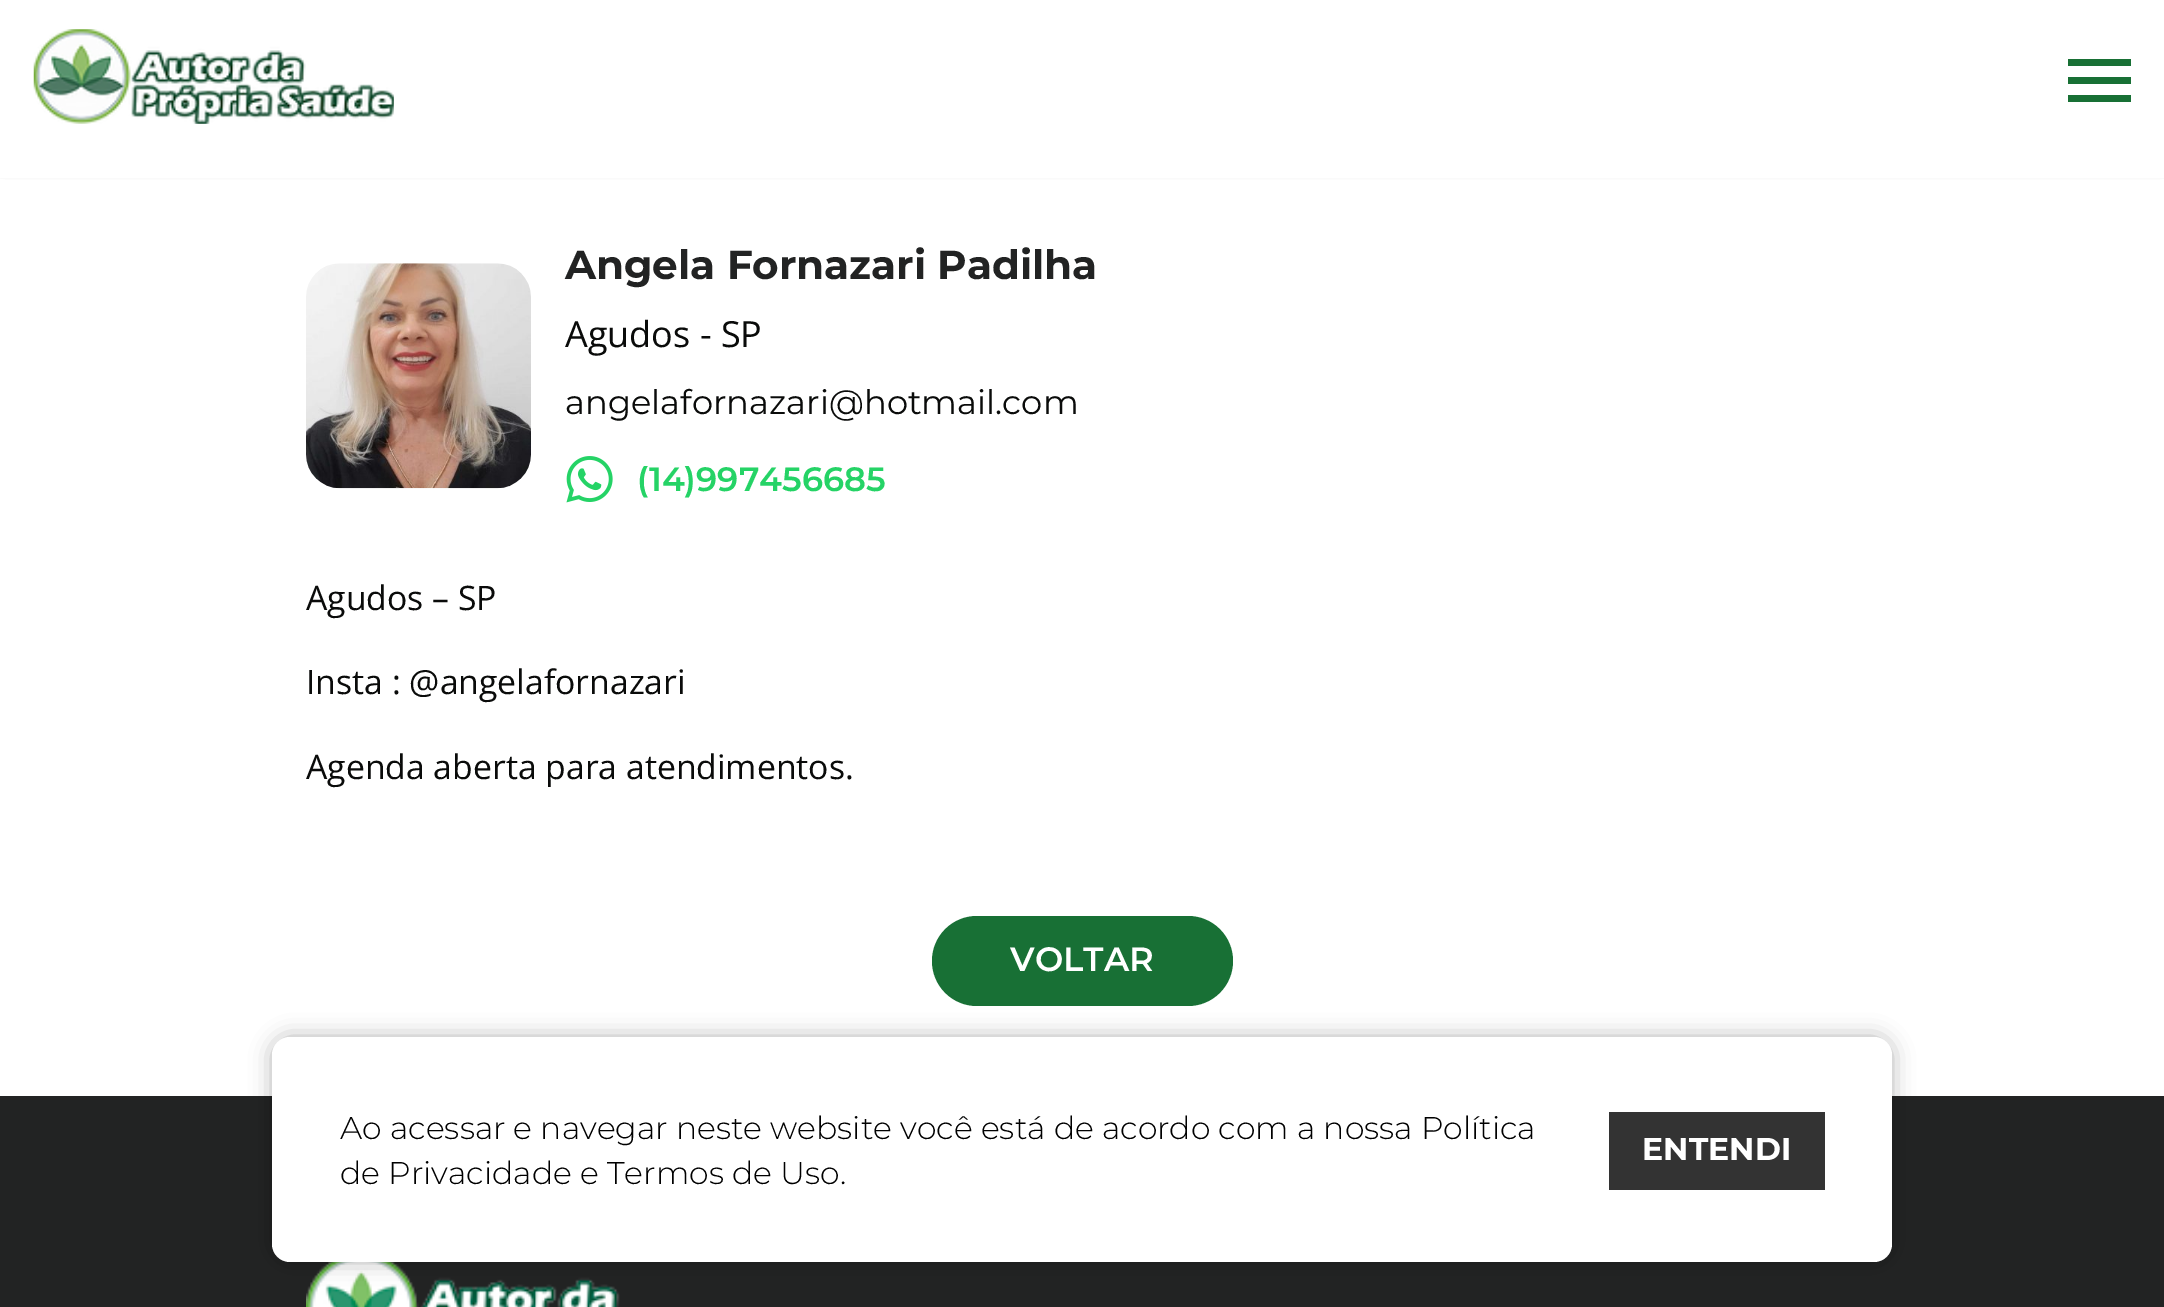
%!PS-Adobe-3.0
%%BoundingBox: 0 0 2164 1307
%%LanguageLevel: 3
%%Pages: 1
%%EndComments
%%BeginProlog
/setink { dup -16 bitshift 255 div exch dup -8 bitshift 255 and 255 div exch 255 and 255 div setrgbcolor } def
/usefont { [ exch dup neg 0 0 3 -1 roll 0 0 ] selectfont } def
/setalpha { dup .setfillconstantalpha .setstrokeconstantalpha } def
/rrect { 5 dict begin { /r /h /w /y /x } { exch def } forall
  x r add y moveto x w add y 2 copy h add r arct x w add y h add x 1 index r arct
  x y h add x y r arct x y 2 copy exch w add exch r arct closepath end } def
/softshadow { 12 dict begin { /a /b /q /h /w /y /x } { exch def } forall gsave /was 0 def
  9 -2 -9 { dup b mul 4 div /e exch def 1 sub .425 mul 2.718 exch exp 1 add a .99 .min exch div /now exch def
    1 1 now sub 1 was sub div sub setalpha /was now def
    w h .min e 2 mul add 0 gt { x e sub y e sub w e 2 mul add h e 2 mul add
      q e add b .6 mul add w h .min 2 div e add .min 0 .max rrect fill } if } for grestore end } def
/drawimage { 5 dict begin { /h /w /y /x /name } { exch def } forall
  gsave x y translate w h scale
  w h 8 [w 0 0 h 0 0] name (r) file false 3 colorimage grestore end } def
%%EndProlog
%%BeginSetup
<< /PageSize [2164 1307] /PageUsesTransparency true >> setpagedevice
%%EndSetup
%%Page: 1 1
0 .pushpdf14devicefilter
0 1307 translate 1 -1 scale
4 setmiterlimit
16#FFFFFF setink
0 0 2164 1307 rectfill
gsave
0 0 moveto 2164 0 lineto 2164 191 lineto 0 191 lineto closepath 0 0 moveto 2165 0 lineto 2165 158 lineto 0 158 lineto closepath eoclip newpath
16#505050 setink
0 -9 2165 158 0 13.5 1 softshadow
grestore
(img1.raw) 33 29 361 95 drawimage
[
    [2068 59 63 7 16#187035]
    [2068 77 63 7 16#187035]
    [2068 95 63 7 16#187035]
    [0 158 2164 20 16#FFFFFF]
] { aload pop setink rectfill } forall
(img2.raw) 306 263 225 226 drawimage
/Montserrat-Bold 40.5 usefont
16#222323 setink
565 279 moveto (Angela Fornazari Padilha) show
/OpenSans-Regular 36 usefont
16#0A0B0A setink
565 347 moveto (Agudos - SP) show
/Montserrat-Regular 33.75 usefont
565 414 moveto (angelafornazari@hotmail.com) show
(img3.raw) 566 456 47 47 drawimage
/Montserrat-SemiBold 33.75 usefont
16#25D366 setink
637 491 moveto (\(14\)997456685) show
/OpenSans-Regular 33.75 usefont
16#0A0B0A setink
[
    [(Agudos – SP) 306 610]
    [(Insta : @angelafornazari) 306 694]
    [(Agenda aberta para atendimentos.) 306 779]
] { aload pop moveto show } forall
16#187035 setink
932 916 301 90 45 rrect fill
/Montserrat-SemiBold 33.75 usefont
16#FFFFFF setink
1010 971 moveto (VOLTAR) show
16#222323 setink
0 1096 2164 211 rectfill
(img4.raw) 306 1262 314 45 drawimage
16#000000 setink
272 1037 1620 225 18 11 0.3 softshadow
16#FFFFFF setink
272 1037 1620 225 18 rrect fill
/Montserrat-Light 31.5 usefont
16#000000 setink
340 1139 moveto (Ao acessar e navegar neste website você está de acordo com a nossa Política) show
340 1184 moveto (de Privacidade e Termos de Uso.) show
16#333333 setink
1609 1112 216 78 rectfill
/Montserrat-Bold 31.5 usefont
16#FFFFFF setink
1642 1160 moveto (ENTENDI) show
.poppdf14devicefilter showpage
%%EOF
